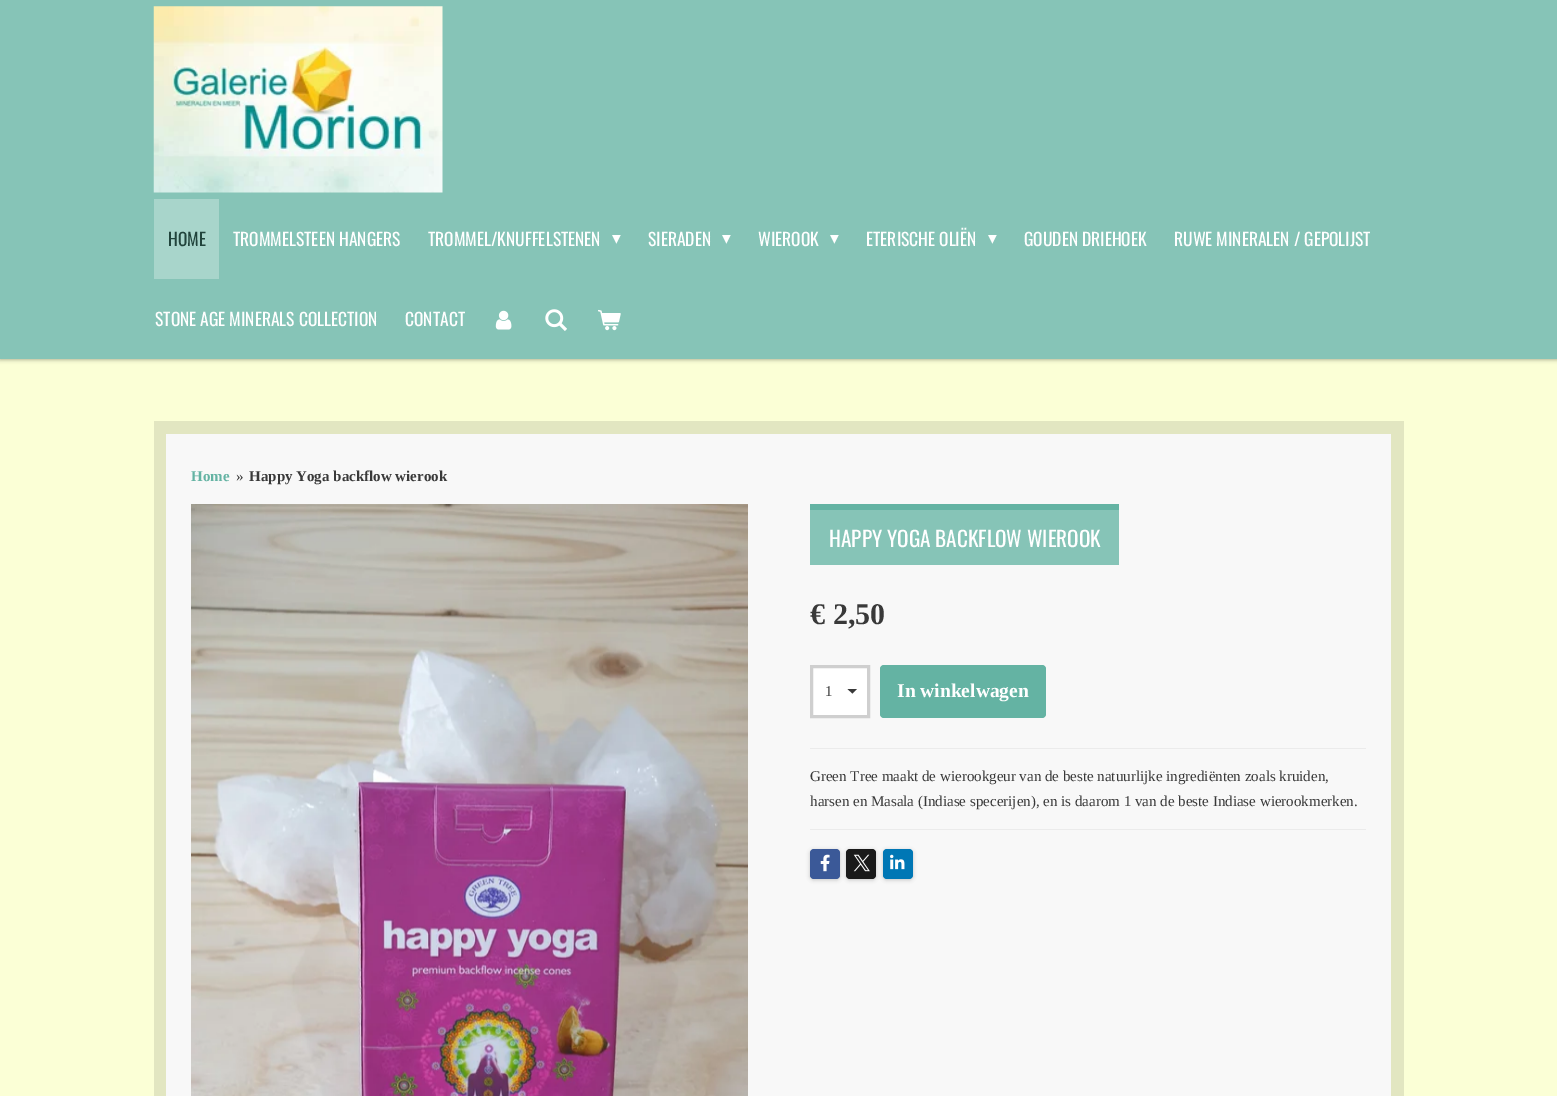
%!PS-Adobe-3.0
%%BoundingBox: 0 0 1557 1096
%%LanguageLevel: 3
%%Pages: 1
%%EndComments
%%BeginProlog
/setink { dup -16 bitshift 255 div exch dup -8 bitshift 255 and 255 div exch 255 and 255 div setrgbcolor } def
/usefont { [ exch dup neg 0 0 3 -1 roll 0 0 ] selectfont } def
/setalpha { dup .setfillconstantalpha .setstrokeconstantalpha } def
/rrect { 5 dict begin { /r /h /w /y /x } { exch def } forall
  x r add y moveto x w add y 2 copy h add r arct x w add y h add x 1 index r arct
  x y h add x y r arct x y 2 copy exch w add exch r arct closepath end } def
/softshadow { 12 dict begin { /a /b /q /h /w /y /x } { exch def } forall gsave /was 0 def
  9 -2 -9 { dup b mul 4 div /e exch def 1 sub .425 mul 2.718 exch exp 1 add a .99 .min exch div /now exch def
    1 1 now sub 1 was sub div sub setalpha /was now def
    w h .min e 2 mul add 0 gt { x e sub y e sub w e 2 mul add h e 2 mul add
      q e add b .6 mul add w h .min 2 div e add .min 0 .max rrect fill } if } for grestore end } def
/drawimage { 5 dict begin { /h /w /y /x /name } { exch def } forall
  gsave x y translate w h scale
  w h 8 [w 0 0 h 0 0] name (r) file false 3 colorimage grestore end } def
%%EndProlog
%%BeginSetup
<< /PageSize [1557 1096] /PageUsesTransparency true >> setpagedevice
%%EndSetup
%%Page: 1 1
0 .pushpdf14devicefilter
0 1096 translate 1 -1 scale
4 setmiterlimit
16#FBFFD6 setink
0 0 1557 1096 rectfill
16#000000 setink
0 1 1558 359 0 2 0.3 softshadow
16#86C4B7 setink
0 0 1557 359 rectfill
(img1.raw) 153 6 290 187 drawimage
16#A8D5CB setink
154 199 65 80 rectfill
/Oswald-Regular 17.5 usefont
16#21443C setink
168 246 moveto (HOME) show
16#FFFFFF setink
233 246 moveto (TROMMELSTEEN HANGERS) show
428 246 moveto (TROMMEL/KNUFFELSTENEN) show
/DejaVuSans-Regular 17.5 usefont
612 244 moveto (▾) show
/Oswald-Regular 17.5 usefont
648 246 moveto (SIERADEN) show
/DejaVuSans-Regular 17.5 usefont
722 244 moveto (▾) show
/Oswald-Regular 17.5 usefont
758 246 moveto (WIEROOK) show
/DejaVuSans-Regular 17.5 usefont
830 244 moveto (▾) show
/Oswald-Regular 17.5 usefont
866 246 moveto (ETERISCHE OLIËN) show
/DejaVuSans-Regular 17.5 usefont
988 244 moveto (▾) show
/Oswald-Regular 17.5 usefont
[
    [(GOUDEN DRIEHOEK) 1024 246]
    [(RUWE MINERALEN / GEPOLIJST) 1174 246]
    [(STONE AGE MINERALS COLLECTION) 155 326]
    [(CONTACT) 405 326]
] { aload pop moveto show } forall
(img2.raw) 495 310 17 20 drawimage
(img3.raw) 545 309 22 22 drawimage
(img4.raw) 598 309 23 22 drawimage
16#E2E6C1 setink
154 421 1250 675 rectfill
16#F8F8F8 setink
166 434 1225 662 rectfill
/LiberationSerif-Bold 15 usefont
16#64B3A3 setink
191 481 moveto (Home) show
/LiberationSerif-Regular 15 usefont
16#393939 setink
236 481 moveto (») show
/LiberationSerif-Bold 15 usefont
249 481 moveto (Happy Yoga backflow wierook) show
(img5.raw) 191 504 557 592 drawimage
16#86C4B7 setink
810 510 309 55 rectfill
16#64B3A3 setink
810 504 309 6 rectfill
/Oswald-Regular 21.25 usefont
16#FFFFFF setink
829 547 moveto (HAPPY YOGA BACKFLOW WIEROOK) show
/LiberationSerif-Bold 30 usefont
16#393939 setink
810 624 moveto (€ 2,50) show
16#FFFFFF setink
813 668 54 47 rectfill
16#393939 setink
852.5 693.5 moveto 847.5 689 lineto 857 689 lineto closepath fill
16#CFCFCF setink
3 setlinewidth
811.5 666.5 57 50 rectstroke
/LiberationSerif-Regular 15 usefont
16#393939 setink
825 696 moveto (1) show
16#64B3A3 setink
880 665 166 53 4 rrect fill
/LiberationSerif-Bold 19.5 usefont
16#FFFFFF setink
897 697 moveto (In winkelwagen) show
16#EBEBEB setink
810 748 556 1 rectfill
/LiberationSerif-Regular 15 usefont
16#393939 setink
810 781 moveto (Green Tree maakt de wierookgeur van de beste natuurlijke ingrediënten zoals kruiden,) show
810 806 moveto (harsen en Masala \(Indiase specerijen\), en is daarom 1 van de beste Indiase wierookmerken.) show
16#EBEBEB setink
810 829 556 1 rectfill
16#000000 setink
810 850 30 30 4 2 0.2 softshadow
16#3B5998 setink
810 849 30 30 4 rrect fill
(img6.raw) 820 854 10 18 drawimage
16#000000 setink
846 850 30 30 4 2 0.2 softshadow
16#1A1A1A setink
846 849 30 30 4 rrect fill
(img7.raw) 853 854 17 18 drawimage
16#000000 setink
883 850 30 30 4 2 0.2 softshadow
16#0077B5 setink
883 849 30 30 4 rrect fill
(img8.raw) 890 854 15 16 drawimage
.poppdf14devicefilter showpage
%%EOF
